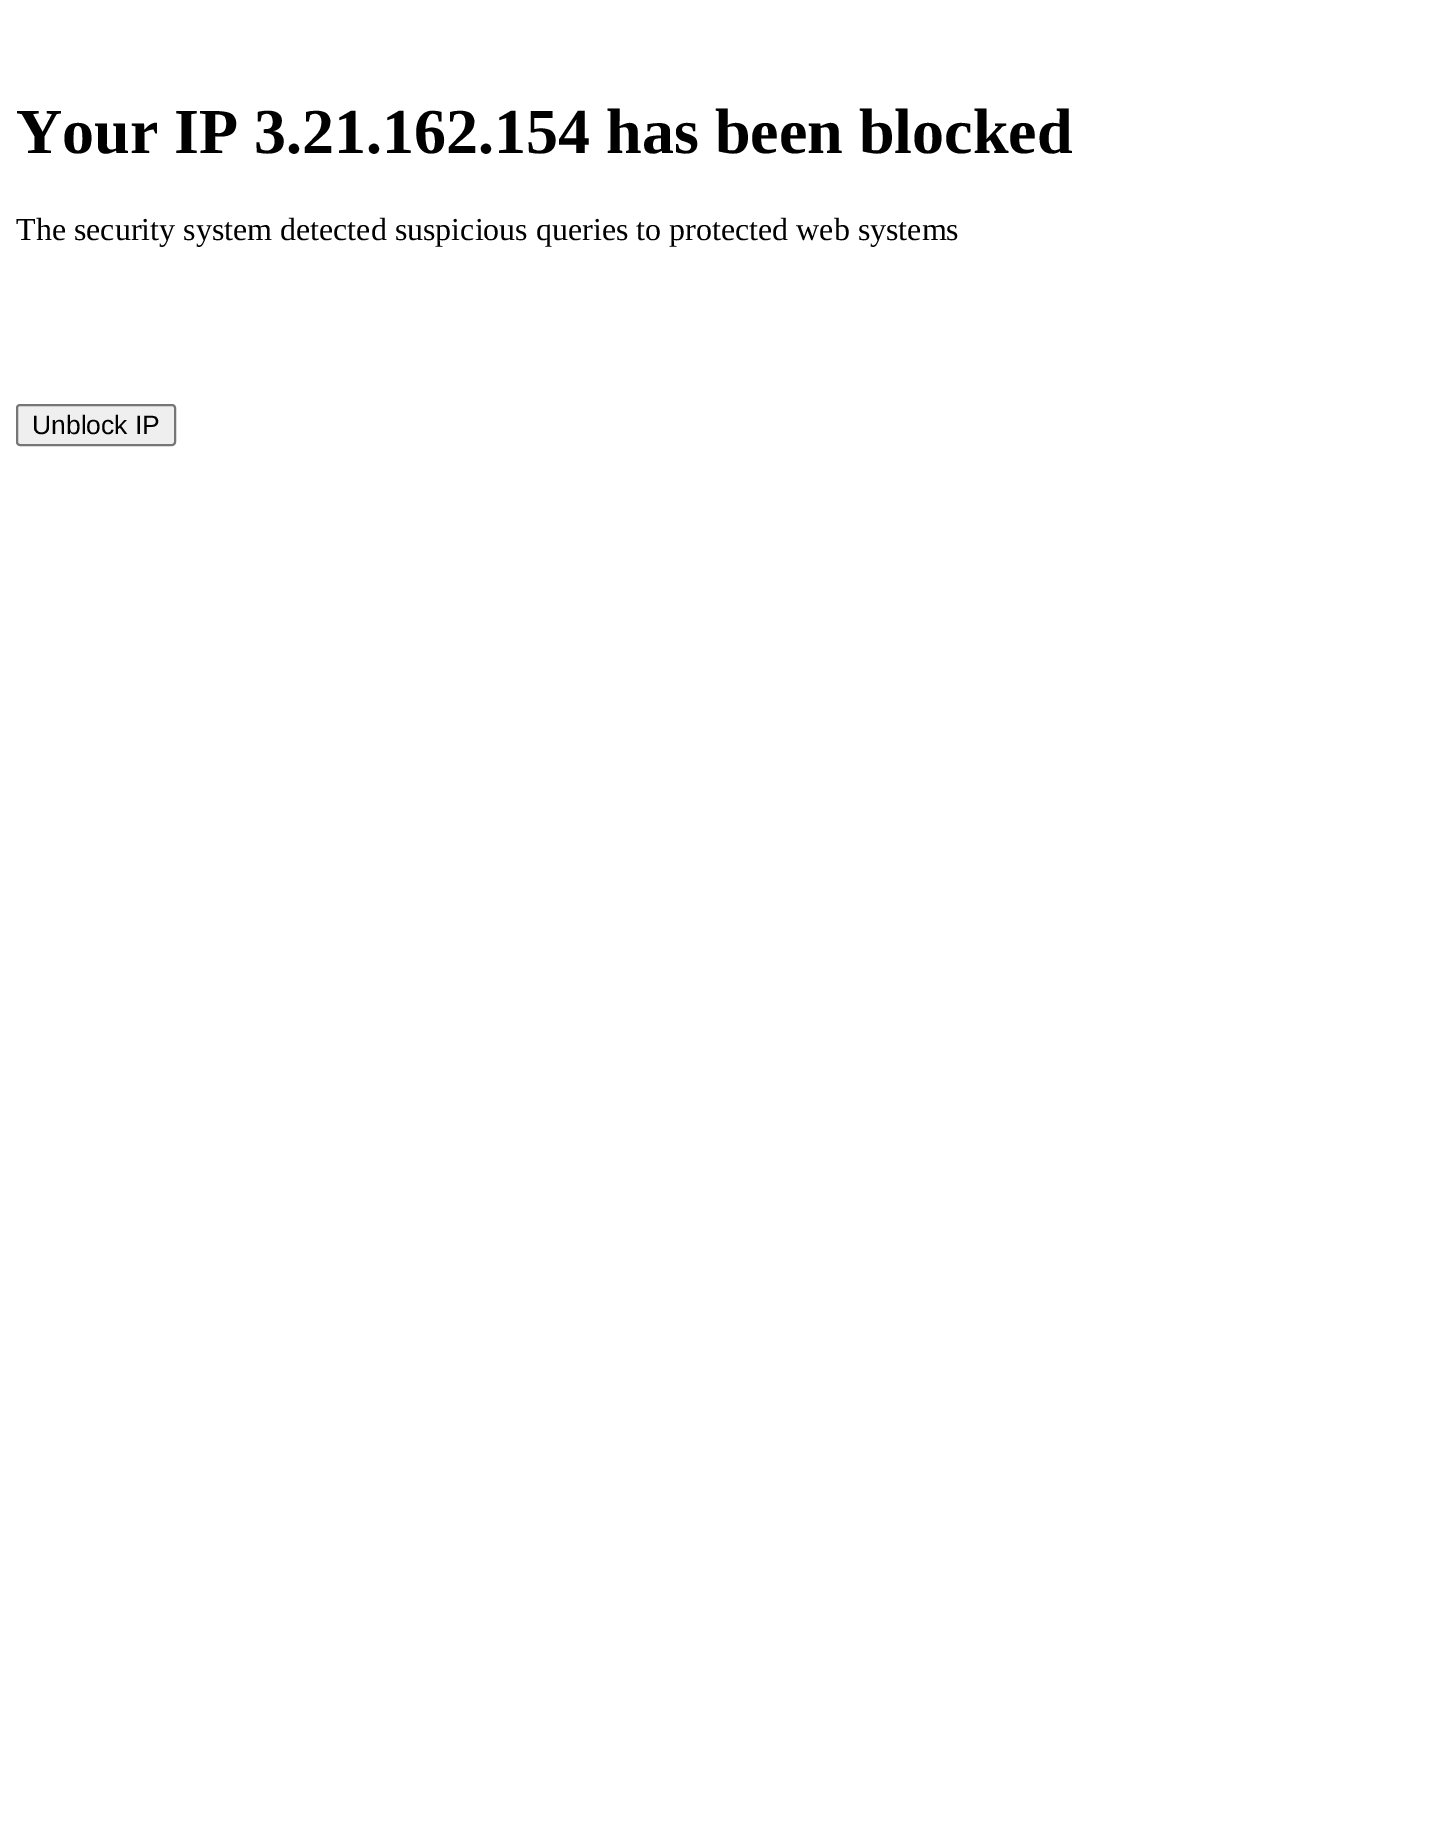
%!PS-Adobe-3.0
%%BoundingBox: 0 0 1443 1823
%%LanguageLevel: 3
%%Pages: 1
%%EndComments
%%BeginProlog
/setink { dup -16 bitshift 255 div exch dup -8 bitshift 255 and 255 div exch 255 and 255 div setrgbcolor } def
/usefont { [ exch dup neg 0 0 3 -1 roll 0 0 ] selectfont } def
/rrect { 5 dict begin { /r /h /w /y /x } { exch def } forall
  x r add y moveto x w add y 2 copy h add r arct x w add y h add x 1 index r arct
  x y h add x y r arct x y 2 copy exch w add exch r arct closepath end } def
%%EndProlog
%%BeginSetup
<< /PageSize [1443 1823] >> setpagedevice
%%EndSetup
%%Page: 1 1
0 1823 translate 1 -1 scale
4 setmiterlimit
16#FFFFFF setink
0 0 1443 1823 rectfill
/LiberationSerif-Bold 64 usefont
16#000000 setink
16 153 moveto (Your IP 3.21.162.154 has been blocked) show
/LiberationSerif-Regular 32 usefont
16 240 moveto (The security system detected suspicious queries to protected web systems) show
16#EFEFEF setink
17 405 158 40 3 rrect gsave fill grestore
16#767676 setink
2 setlinewidth
stroke
/LiberationSans-Regular 26.5 usefont
16#000000 setink
32 434 moveto (Unblock IP) show
showpage
%%EOF
